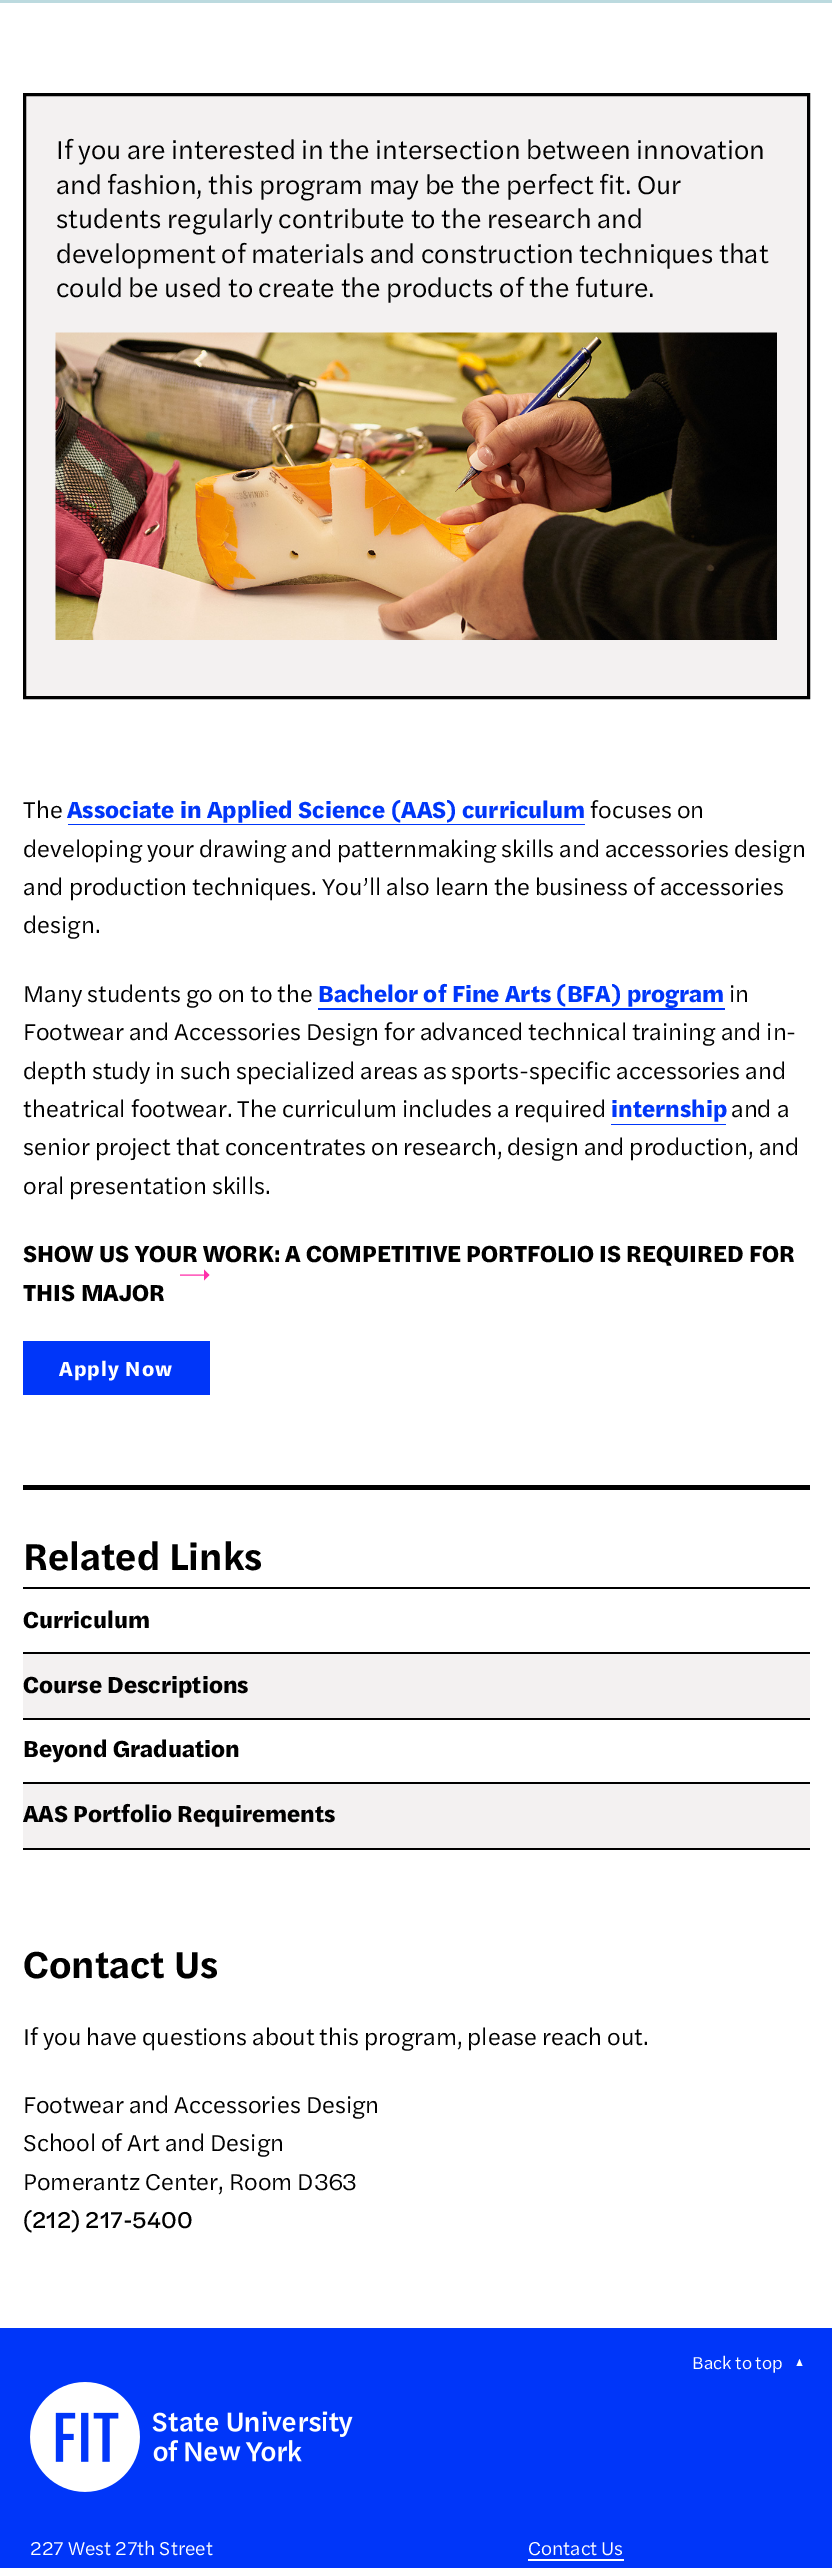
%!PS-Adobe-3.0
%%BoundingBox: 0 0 832 2568
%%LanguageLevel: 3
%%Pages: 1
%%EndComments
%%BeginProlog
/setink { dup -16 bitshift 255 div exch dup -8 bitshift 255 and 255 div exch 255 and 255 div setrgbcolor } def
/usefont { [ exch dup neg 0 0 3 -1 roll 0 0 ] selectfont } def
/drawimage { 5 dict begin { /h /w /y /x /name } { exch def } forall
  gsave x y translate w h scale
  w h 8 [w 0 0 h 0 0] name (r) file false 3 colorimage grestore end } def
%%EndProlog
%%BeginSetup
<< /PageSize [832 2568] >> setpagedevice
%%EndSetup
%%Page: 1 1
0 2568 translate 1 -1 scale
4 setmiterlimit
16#FFFFFF setink
0 0 832 2568 rectfill
16#BCDADF setink
0 0 832 3 rectfill
16#F3F1F1 setink
24.5 94.5 moveto 808.5 94.5 lineto 808.5 697.5 lineto 24.5 697.5 lineto closepath gsave fill grestore
16#000000 setink
3 setlinewidth
stroke
/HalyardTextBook-Regular 27 usefont
[
    [(If you are interested in the intersection between innovation) 56 159]
    [(and fashion, this program may be the perfect fit. Our) 56 194]
    [(students regularly contribute to the research and) 56 228]
    [(development of materials and construction techniques that) 56 263]
    [(could be used to create the products of the future.) 56 297]
] { aload pop moveto show } forall
(img1.raw) 55 332 722 308 drawimage
/HalyardTextBook-Regular 24 usefont
23 818 moveto (The) show
/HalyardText-Bold 24 usefont
16#0036F9 setink
67 818 moveto (Associate in Applied Science \(AAS\) curriculum) show
68 824 517 1 rectfill
/HalyardTextBook-Regular 24 usefont
16#000000 setink
[
    [(focuses on) 590 818]
    [(developing your drawing and patternmaking skills and accessories design) 23 857]
    [(and production techniques. You’ll also learn the business of accessories) 23 895]
    [(design.) 23 933]
    [(Many students go on to the) 23 1002]
] { aload pop moveto show } forall
/HalyardText-Bold 24 usefont
16#0036F9 setink
318 1002 moveto (Bachelor of Fine Arts \(BFA\) program) show
318 1008 407 2 rectfill
/HalyardTextBook-Regular 24 usefont
16#000000 setink
[
    [(in) 729 1002]
    [(Footwear and Accessories Design for advanced technical training and in-) 23 1040]
    [(depth study in such specialized areas as sports-specific accessories and) 23 1079]
    [(theatrical footwear. The curriculum includes a required) 23 1117]
] { aload pop moveto show } forall
/HalyardText-Bold 24 usefont
16#0036F9 setink
611 1117 moveto (internship) show
611 1124 115 1 rectfill
/HalyardTextBook-Regular 24 usefont
16#000000 setink
[
    [(and a) 731 1117]
    [(senior project that concentrates on research, design and production, and) 23 1155]
    [(oral presentation skills.) 23 1194]
] { aload pop moveto show } forall
/HalyardText-Bold 24 usefont
23 1262 moveto (SHOW US YOUR WORK: A COMPETITIVE PORTFOLIO IS REQUIRED FOR) show
16#FF2EAA setink
204 1269.5 moveto 209.5 1275 lineto 204 1280.5 lineto closepath eofill
0.9 setlinewidth
2 setlinecap
180.5 1275 moveto 208.5 1275 lineto stroke
16#000000 setink
23 1301 moveto (THIS MAJOR) show
16#0036F9 setink
23 1341 187 54 rectfill
/HalyardText-Bold 21 usefont
16#FFFFFF setink
59 1376 moveto 1 0 (Apply Now) ashow
16#000000 setink
23 1485 787 5 rectfill
/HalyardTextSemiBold-SemiBold 39 usefont
23 1570 moveto (Related Links) show
23 1587 787 2 rectfill
/HalyardText-Bold 24 usefont
23 1628 moveto (Curriculum) show
16#F3F1F1 setink
23 1654 787 64 rectfill
16#000000 setink
23 1652 787 2 rectfill
23 1693 moveto (Course Descriptions) show
23 1718 787 2 rectfill
23 1757 moveto (Beyond Graduation) show
[
    [23 1784 787 64 16#F3F1F1]
    [23 1782 787 2 16#000000]
    [23 1848 787 2 16#000000]
] { aload pop setink rectfill } forall
23 1822 moveto (AAS Portfolio Requirements) show
/HalyardTextSemiBold-SemiBold 39 usefont
23 1978 moveto (Contact Us) show
/HalyardTextBook-Regular 24 usefont
[
    [(If you have questions about this program, please reach out.) 23 2045]
    [(Footwear and Accessories Design) 23 2113]
    [(School of Art and Design) 23 2151]
    [(Pomerantz Center, Room D363) 23 2190]
] { aload pop moveto show } forall
/HalyardText-Regular 24 usefont
23 2228 moveto (\(212\) 217-5400) show
16#0036F9 setink
0 2328 832 240 rectfill
/HalyardTextBook-Regular 18 usefont
16#FFFFFF setink
692 2369 moveto (Back to top) show
802.5 2366 moveto 796.5 2366 lineto 799.5 2359 lineto closepath fill
(img2.raw) 30 2382 323 110 drawimage
/HalyardTextBook-Regular 19.5 usefont
30 2555 moveto (227 West 27th Street) show
528 2555 moveto (Contact Us) show
528 2559 96 2 rectfill
showpage
%%EOF
